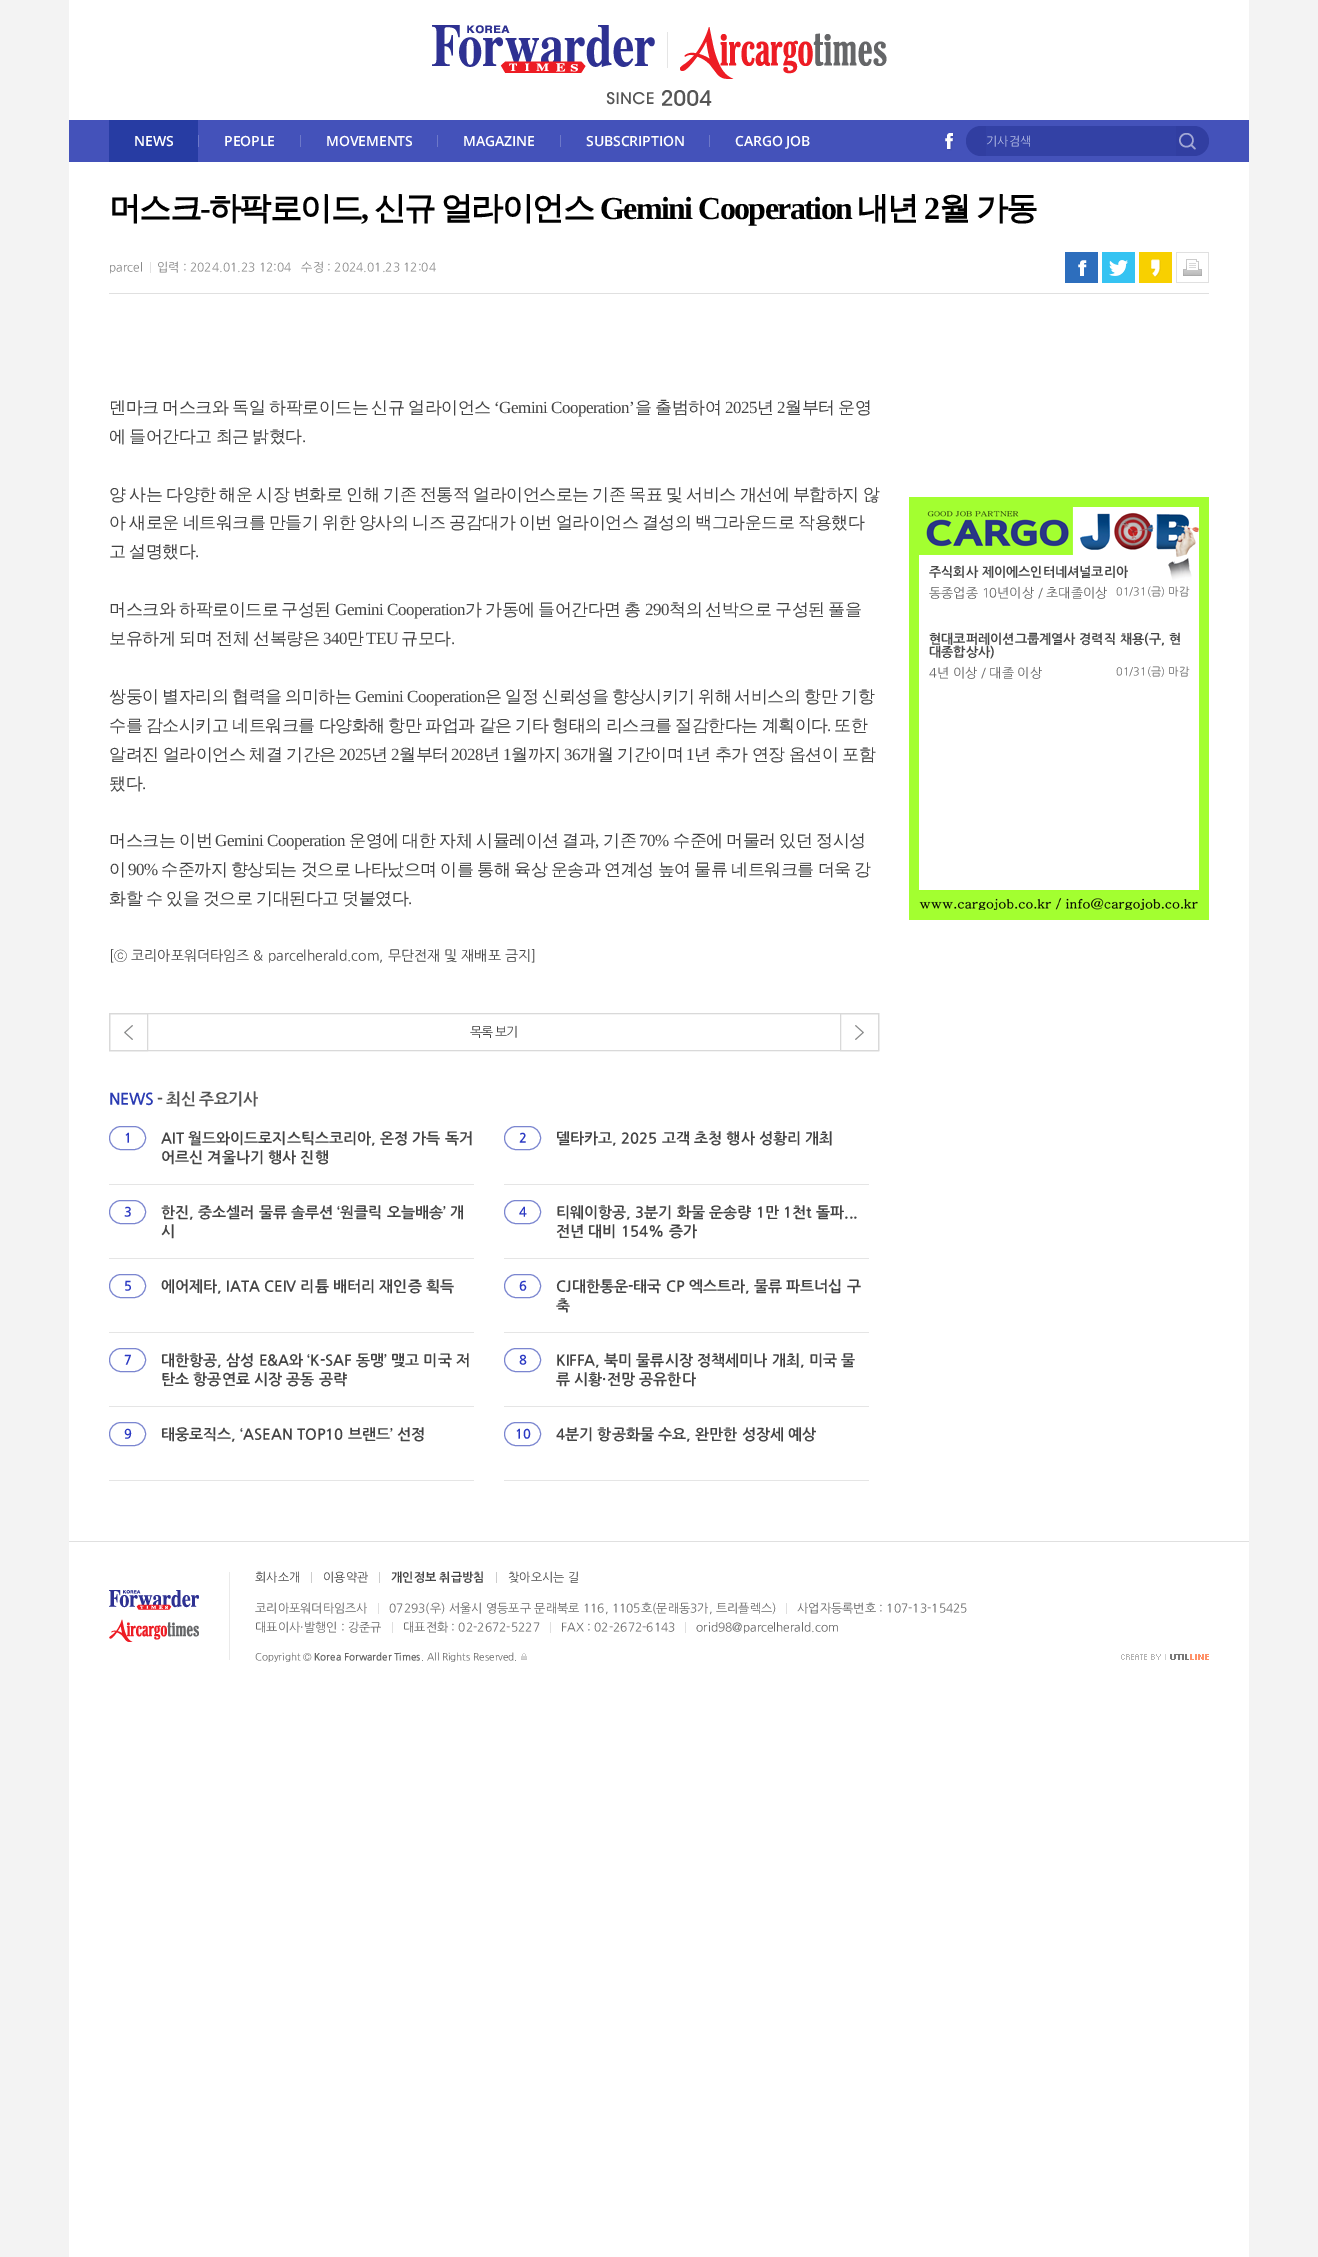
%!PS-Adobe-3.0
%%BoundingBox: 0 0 1318 2257
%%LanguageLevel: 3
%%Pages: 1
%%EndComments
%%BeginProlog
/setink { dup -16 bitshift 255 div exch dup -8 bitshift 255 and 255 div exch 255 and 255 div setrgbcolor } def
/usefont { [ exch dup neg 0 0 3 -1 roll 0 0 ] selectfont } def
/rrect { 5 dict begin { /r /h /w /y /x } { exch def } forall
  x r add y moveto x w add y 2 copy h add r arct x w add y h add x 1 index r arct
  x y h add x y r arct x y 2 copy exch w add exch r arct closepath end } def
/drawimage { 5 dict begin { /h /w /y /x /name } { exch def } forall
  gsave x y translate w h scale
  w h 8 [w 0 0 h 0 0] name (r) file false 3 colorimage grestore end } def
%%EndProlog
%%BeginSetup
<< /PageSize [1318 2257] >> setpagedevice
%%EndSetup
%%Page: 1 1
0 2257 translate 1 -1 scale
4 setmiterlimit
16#F3F3F3 setink
0 0 1318 2257 rectfill
16#FFFFFF setink
69 0 1180 2257 rectfill
16#4452BA setink
69 120 1180 42 rectfill
(img1.raw) 432 25 455 81 drawimage
16#273CA3 setink
109 120 89 42 rectfill
/OpenSans-SemiBold 14 usefont
16#FFFFFF setink
134 146 moveto -0.1 0 (NEWS) ashow
16#6D78C9 setink
198 135 1 12 rectfill
16#FFFFFF setink
224 146 moveto -0.1 0 (PEOPLE) ashow
16#6D78C9 setink
300 135 1 12 rectfill
16#FFFFFF setink
326 146 moveto -0.1 0 (MOVEMENTS) ashow
16#6D78C9 setink
437 135 1 12 rectfill
16#FFFFFF setink
463 146 moveto -0.1 0 (MAGAZINE) ashow
16#6D78C9 setink
560 135 1 12 rectfill
16#FFFFFF setink
586 146 moveto -0.1 0 (SUBSCRIPTION) ashow
16#6D78C9 setink
709 135 1 12 rectfill
16#FFFFFF setink
735 146 moveto -0.1 0 (CARGO JOB) ashow
(img2.raw) 945 133 10 18 drawimage
16#313EA1 setink
966 126 243 30 15 rrect fill
16#3341A5 setink
986 126 190 30 rectfill
/NanumGothic-Regular 12 usefont
16#B5BDE5 setink
986 145 moveto (기사검색) show
(img3.raw) 1179 133 17 17 drawimage
16#E0E0E0 setink
109 293 1100 1 rectfill
/WenQuanYiZenHei-Bold 32 usefont
16#000000 setink
109 219 moveto -1.6 0 (머스크) ashow
/LiberationSerif-Bold 32 usefont
200 219 moveto -1.6 0 (-) ashow
/WenQuanYiZenHei-Bold 32 usefont
209 219 moveto -1.6 0 (하팍로이드) ashow
374 219 moveto -1.6 0 (신규) ashow
441 219 moveto -1.6 0 (얼라이언스) ashow
/LiberationSerif-Bold 32 usefont
600 219 moveto -1.6 0 (Gemini Cooperation) ashow
/WenQuanYiZenHei-Bold 32 usefont
857 219 moveto -1.6 0 (내년) ashow
/LiberationSerif-Bold 32 usefont
924 219 moveto -1.6 0 (2) ashow
/WenQuanYiZenHei-Bold 32 usefont
939 219 moveto -1.6 0 (월) ashow
976 219 moveto -1.6 0 (가동) ashow
/LiberationSerif-Bold 32 usefont
361 219 moveto -1.6 0 (,) ashow
/NanumGothic-Regular 12 usefont
16#888888 setink
109 271 moveto (parcel) show
16#E2E2E2 setink
150 262 1 11 rectfill
16#888888 setink
157 271 moveto (입력 : 2024.01.23 12:04   수정 : 2024.01.23 12:04) show
(img4.raw) 1065 252 33 31 drawimage
(img5.raw) 1102 252 33 31 drawimage
(img6.raw) 1139 252 33 31 drawimage
(img7.raw) 1176 252 33 31 drawimage
/WenQuanYiZenHei-Medium 17 usefont
16#444444 setink
109 413 moveto -0.5 0 (덴마크) ashow
162 413 moveto -0.5 0 (머스크와) ashow
232 413 moveto -0.5 0 (독일) ashow
269 413 moveto -0.5 0 (하팍로이드는) ashow
371 413 moveto -0.5 0 (신규) ashow
408 413 moveto -0.5 0 (얼라이언스) ashow
/LiberationSerif-Regular 17 usefont
494 413 moveto -0.5 0 (‘Gemini Cooperation’) ashow
/WenQuanYiZenHei-Medium 17 usefont
635 413 moveto -0.5 0 (을) ashow
655 413 moveto -0.5 0 (출범하여) ashow
/LiberationSerif-Regular 17 usefont
725 413 moveto -0.5 0 (2025) ashow
/WenQuanYiZenHei-Medium 17 usefont
757 413 moveto -0.5 0 (년) ashow
/LiberationSerif-Regular 17 usefont
777 413 moveto -0.5 0 (2) ashow
/WenQuanYiZenHei-Medium 17 usefont
785 413 moveto -0.5 0 (월부터) ashow
838 413 moveto -0.5 0 (운영) ashow
109 442 moveto -0.8 0 32 -0.5 0 (에 들어간다고 최근 밝혔다) awidthshow
/LiberationSerif-Regular 17 usefont
302 442 moveto -0.5 0 (.) ashow
/WenQuanYiZenHei-Medium 17 usefont
109 500 moveto -0.8 0 32 -0.5 0 (양 사는 다양한 해운 시장 변화로 인해 기존 전통적 얼라이언스로는 기존 목표 및 서비스 개선에 부합하지 않) awidthshow
109 528 moveto -0.8 0 32 -0.5 0 (아 새로운 네트워크를 만들기 위한 양사의 니즈 공감대가 이번 얼라이언스 결성의 백그라운드로 작용했다) awidthshow
109 557 moveto -0.8 0 32 -0.5 0 (고 설명했다) awidthshow
/LiberationSerif-Regular 17 usefont
195 557 moveto -0.5 0 (.) ashow
/WenQuanYiZenHei-Medium 17 usefont
109 615 moveto -0.5 0 (머스크와) ashow
179 615 moveto -0.5 0 (하팍로이드로) ashow
281 615 moveto -0.5 0 (구성된) ashow
/LiberationSerif-Regular 17 usefont
335 615 moveto -0.5 0 (Gemini Cooperation) ashow
/WenQuanYiZenHei-Medium 17 usefont
465 615 moveto -0.5 0 (가) ashow
485 615 moveto -0.5 0 (가동에) ashow
538 615 moveto -0.5 0 (들어간다면) ashow
624 615 moveto -0.5 0 (총) ashow
/LiberationSerif-Regular 17 usefont
645 615 moveto -0.5 0 (290) ashow
/WenQuanYiZenHei-Medium 17 usefont
669 615 moveto -0.5 0 (척의) ashow
705 615 moveto -0.5 0 (선박으로) ashow
775 615 moveto -0.5 0 (구성된) ashow
828 615 moveto -0.5 0 (풀을) ashow
109 644 moveto -0.5 0 32 -0.5 0 (보유하게 되며 전체 선복량은) awidthshow
/LiberationSerif-Regular 17 usefont
323 644 moveto -0.5 0 (340) ashow
/WenQuanYiZenHei-Medium 17 usefont
347 644 moveto -0.5 0 (만) ashow
/LiberationSerif-Regular 17 usefont
366 644 moveto -0.5 0 (TEU) ashow
/WenQuanYiZenHei-Medium 17 usefont
401 644 moveto -0.5 0 (규모다) ashow
/LiberationSerif-Regular 17 usefont
451 644 moveto -0.5 0 (.) ashow
/WenQuanYiZenHei-Medium 17 usefont
109 702 moveto -0.5 0 (쌍둥이) ashow
162 702 moveto -0.5 0 (별자리의) ashow
232 702 moveto -0.5 0 (협력을) ashow
285 702 moveto -0.5 0 (의미하는) ashow
/LiberationSerif-Regular 17 usefont
355 702 moveto -0.5 0 (Gemini Cooperation) ashow
/WenQuanYiZenHei-Medium 17 usefont
485 702 moveto -0.5 0 (은) ashow
505 702 moveto -0.5 0 (일정) ashow
542 702 moveto -0.5 0 (신뢰성을) ashow
612 702 moveto -0.5 0 (향상시키기) ashow
698 702 moveto -0.5 0 (위해) ashow
734 702 moveto -0.5 0 (서비스의) ashow
804 702 moveto -0.5 0 (항만) ashow
841 702 moveto -0.5 0 (기항) ashow
109 731 moveto -0.75 0 32 -0.5 0 (수를 감소시키고 네트워크를 다양화해 항만 파업과 같은 기타 형태의 리스크를 절감한다는 계획이다) awidthshow
/LiberationSerif-Regular 17 usefont
827 731 moveto -0.5 0 (.) ashow
/WenQuanYiZenHei-Medium 17 usefont
834 731 moveto -0.5 0 (또한) ashow
109 760 moveto -0.5 0 32 -0.5 0 (알려진 얼라이언스 체결 기간은) awidthshow
/LiberationSerif-Regular 17 usefont
339 760 moveto -0.5 0 (2025) ashow
/WenQuanYiZenHei-Medium 17 usefont
371 760 moveto -0.5 0 (년) ashow
/LiberationSerif-Regular 17 usefont
391 760 moveto -0.5 0 (2) ashow
/WenQuanYiZenHei-Medium 17 usefont
399 760 moveto -0.5 0 (월부터) ashow
/LiberationSerif-Regular 17 usefont
451 760 moveto -0.5 0 (2028) ashow
/WenQuanYiZenHei-Medium 17 usefont
483 760 moveto -0.5 0 (년) ashow
/LiberationSerif-Regular 17 usefont
503 760 moveto -0.5 0 (1) ashow
/WenQuanYiZenHei-Medium 17 usefont
511 760 moveto -0.5 0 (월까지) ashow
/LiberationSerif-Regular 17 usefont
564 760 moveto -0.5 0 (36) ashow
/WenQuanYiZenHei-Medium 17 usefont
580 760 moveto -0.5 0 32 -0.5 0 (개월 기간이며) awidthshow
/LiberationSerif-Regular 17 usefont
686 760 moveto -0.5 0 (1) ashow
/WenQuanYiZenHei-Medium 17 usefont
694 760 moveto -0.5 0 32 -0.5 0 (년 추가 연장 옵션이 포함) awidthshow
109 789 moveto -0.5 0 (됐다) ashow
/LiberationSerif-Regular 17 usefont
142 789 moveto -0.5 0 (.) ashow
/WenQuanYiZenHei-Medium 17 usefont
109 846 moveto -0.5 0 (머스크는) ashow
179 846 moveto -0.5 0 (이번) ashow
/LiberationSerif-Regular 17 usefont
215 846 moveto -0.5 0 (Gemini Cooperation) ashow
/WenQuanYiZenHei-Medium 17 usefont
349 846 moveto -0.5 0 (운영에) ashow
402 846 moveto -0.5 0 (대한) ashow
439 846 moveto -0.5 0 (자체) ashow
476 846 moveto -0.5 0 (시뮬레이션) ashow
562 846 moveto -0.5 0 (결과) ashow
/LiberationSerif-Regular 17 usefont
595 846 moveto -0.5 0 (,) ashow
/WenQuanYiZenHei-Medium 17 usefont
603 846 moveto -0.5 0 (기존) ashow
/LiberationSerif-Regular 17 usefont
639 846 moveto -0.5 0 (70%) ashow
/WenQuanYiZenHei-Medium 17 usefont
673 846 moveto -0.5 0 (수준에) ashow
726 846 moveto -0.5 0 (머물러) ashow
779 846 moveto -0.5 0 (있던) ashow
816 846 moveto -0.5 0 (정시성) ashow
109 875 moveto -0.5 0 (이) ashow
/LiberationSerif-Regular 17 usefont
128 875 moveto -0.5 0 (90%) ashow
/WenQuanYiZenHei-Medium 17 usefont
161 875 moveto -0.75 0 32 -0.5 0 (수준까지 향상되는 것으로 나타났으며 이를 통해 육상 운송과 연계성 높여 물류 네트워크를 더욱 강) awidthshow
109 904 moveto -0.8 0 32 -0.5 0 (화할 수 있을 것으로 기대된다고 덧붙였다) awidthshow
/LiberationSerif-Regular 17 usefont
408 904 moveto -0.5 0 (.) ashow
/NanumGothic-Regular 14 usefont
109 960 moveto ([ⓒ 코리아포워더타임즈 & parcelherald.com, 무단전재 및 재배포 금지]) show
16#D9D9D9 setink
109.5 1013.5 769 37 rectstroke
(img8.raw) 124 1025 9 15 drawimage
109.5 1013.5 38 37 rectstroke
/NanumGothic-Regular 13 usefont
16#444444 setink
470 1036 moveto -1 0 (목록 보기) ashow
(img9.raw) 855 1025 9 15 drawimage
16#D9D9D9 setink
840.5 1013.5 38 37 rectstroke
/NanumGothic-Bold 16 usefont
16#2A3BB3 setink
109 1104 moveto -0.5 0 (NEWS) ashow
16#555555 setink
157 1104 moveto -0.5 0 (- 최신 주요기사) ashow
16#E5E5E5 setink
109 1184 365 1 rectfill
16#7B86D0 setink
109.5 1126.5 36 23 11.5 rrect stroke
/NanumGothic-Bold 13 usefont
16#2A38C3 setink
124 1142 moveto (1) show
/NanumGothic-Bold 15 usefont
16#444444 setink
161 1143 moveto (AIT 월드와이드로지스틱스코리아, 온정 가득 독거) show
161 1162 moveto (어르신 겨울나기 행사 진행) show
16#E5E5E5 setink
504 1184 365 1 rectfill
16#7B86D0 setink
504.5 1126.5 36 23 11.5 rrect stroke
/NanumGothic-Bold 13 usefont
16#2A38C3 setink
519 1142 moveto (2) show
/NanumGothic-Bold 15 usefont
16#444444 setink
556 1143 moveto (델타카고, 2025 고객 초청 행사 성황리 개최) show
16#E5E5E5 setink
109 1258 365 1 rectfill
16#7B86D0 setink
109.5 1200.5 36 23 11.5 rrect stroke
/NanumGothic-Bold 13 usefont
16#2A38C3 setink
124 1216 moveto (3) show
/NanumGothic-Bold 15 usefont
16#444444 setink
161 1217 moveto (한진, 중소셀러 물류 솔루션 ‘원클릭 오늘배송’ 개) show
161 1236 moveto (시) show
16#E5E5E5 setink
504 1258 365 1 rectfill
16#7B86D0 setink
504.5 1200.5 36 23 11.5 rrect stroke
/NanumGothic-Bold 13 usefont
16#2A38C3 setink
519 1216 moveto (4) show
/NanumGothic-Bold 15 usefont
16#444444 setink
556 1217 moveto (티웨이항공, 3분기 화물 운송량 1만 1천t 돌파...) show
556 1236 moveto (전년 대비 154% 증가) show
16#E5E5E5 setink
109 1332 365 1 rectfill
16#7B86D0 setink
109.5 1274.5 36 23 11.5 rrect stroke
/NanumGothic-Bold 13 usefont
16#2A38C3 setink
124 1290 moveto (5) show
/NanumGothic-Bold 15 usefont
16#444444 setink
161 1291 moveto (에어제타, IATA CEIV 리튬 배터리 재인증 획득) show
16#E5E5E5 setink
504 1332 365 1 rectfill
16#7B86D0 setink
504.5 1274.5 36 23 11.5 rrect stroke
/NanumGothic-Bold 13 usefont
16#2A38C3 setink
519 1290 moveto (6) show
/NanumGothic-Bold 15 usefont
16#444444 setink
556 1291 moveto (CJ대한통운-태국 CP 엑스트라, 물류 파트너십 구) show
556 1310 moveto (축) show
16#E5E5E5 setink
109 1406 365 1 rectfill
16#7B86D0 setink
109.5 1348.5 36 23 11.5 rrect stroke
/NanumGothic-Bold 13 usefont
16#2A38C3 setink
124 1364 moveto (7) show
/NanumGothic-Bold 15 usefont
16#444444 setink
161 1365 moveto (대한항공, 삼성 E&A와 ‘K-SAF 동맹’ 맺고 미국 저) show
161 1384 moveto (탄소 항공연료 시장 공동 공략) show
16#E5E5E5 setink
504 1406 365 1 rectfill
16#7B86D0 setink
504.5 1348.5 36 23 11.5 rrect stroke
/NanumGothic-Bold 13 usefont
16#2A38C3 setink
519 1364 moveto (8) show
/NanumGothic-Bold 15 usefont
16#444444 setink
556 1365 moveto (KIFFA, 북미 물류시장 정책세미나 개최, 미국 물) show
556 1384 moveto (류 시황·전망 공유한다) show
16#E5E5E5 setink
109 1480 365 1 rectfill
16#7B86D0 setink
109.5 1422.5 36 23 11.5 rrect stroke
/NanumGothic-Bold 13 usefont
16#2A38C3 setink
124 1438 moveto (9) show
/NanumGothic-Bold 15 usefont
16#444444 setink
161 1439 moveto (태웅로직스, ‘ASEAN TOP10 브랜드’ 선정) show
16#E5E5E5 setink
504 1480 365 1 rectfill
16#7B86D0 setink
504.5 1422.5 36 23 11.5 rrect stroke
/NanumGothic-Bold 13 usefont
16#2A38C3 setink
515 1438 moveto (10) show
/NanumGothic-Bold 15 usefont
16#444444 setink
556 1439 moveto (4분기 항공화물 수요, 완만한 성장세 예상) show
(img10.raw) 909 497 300 58 drawimage
(img11.raw) 909 555 300 335 drawimage
/NanumGothic-Bold 13 usefont
929 576 moveto (주식회사 제이에스인터네셔널코리아) show
/NanumGothic-Regular 13 usefont
16#666666 setink
929 597 moveto (동종업종 10년이상 / 초대졸이상) show
/NanumGothic-Regular 11 usefont
1116 595 moveto (01/31\(금\) 마감) show
/NanumGothic-Bold 13 usefont
16#444444 setink
929 643 moveto (현대코퍼레이션그룹계열사 경력직 채용\(구, 현) show
929 656 moveto (대종합상사\)) show
/NanumGothic-Regular 13 usefont
16#666666 setink
929 677 moveto (4년 이상 / 대졸 이상) show
/NanumGothic-Regular 11 usefont
1116 675 moveto (01/31\(금\) 마감) show
(img12.raw) 909 890 300 30 drawimage
16#E0E0E0 setink
69 1541 1180 1 rectfill
(img13.raw) 109 1590 90 52 drawimage
16#EAEAEA setink
229 1572 1 88 rectfill
/NanumGothic-Regular 12 usefont
16#444444 setink
255 1581 moveto (회사소개) show
16#CCCCCC setink
311 1572 1 11 rectfill
16#444444 setink
323 1581 moveto (이용약관) show
16#CCCCCC setink
379 1572 1 11 rectfill
/NanumGothic-Bold 12 usefont
16#444444 setink
391 1581 moveto (개인정보 취급방침) show
16#CCCCCC setink
496 1572 1 11 rectfill
/NanumGothic-Regular 12 usefont
16#444444 setink
508 1581 moveto (찾아오시는 길) show
16#666666 setink
255 1612 moveto (코리아포워더타임즈사) show
16#DFDFDF setink
378 1603 1 11 rectfill
16#666666 setink
389 1612 moveto (07293\(우\) 서울시 영등포구 문래북로 116, 1105호\(문래동3가, 트리플렉스\)) show
16#DFDFDF setink
786 1603 1 11 rectfill
16#666666 setink
797 1612 moveto (사업자등록번호 : 107-13-15425) show
255 1631 moveto (대표이사·발행인 : 강준규) show
16#DFDFDF setink
392 1622 1 11 rectfill
16#666666 setink
403 1631 moveto (대표전화 : 02-2672-5227) show
16#DFDFDF setink
550 1622 1 11 rectfill
16#666666 setink
561 1631 moveto (FAX : 02-2672-6143) show
16#DFDFDF setink
685 1622 1 11 rectfill
16#666666 setink
696 1631 moveto (orid98@parcelherald.com) show
/NanumGothic-Regular 10 usefont
255 1660 moveto (Copyright ©) show
/NanumGothic-Bold 10 usefont
314 1660 moveto (Korea Forwarder Times) show
/NanumGothic-Regular 10 usefont
421 1660 moveto (. All Rights Reserved.) show
(img14.raw) 521 1653 6 7 drawimage
(img15.raw) 1121 1654 88 6 drawimage
showpage
%%EOF
